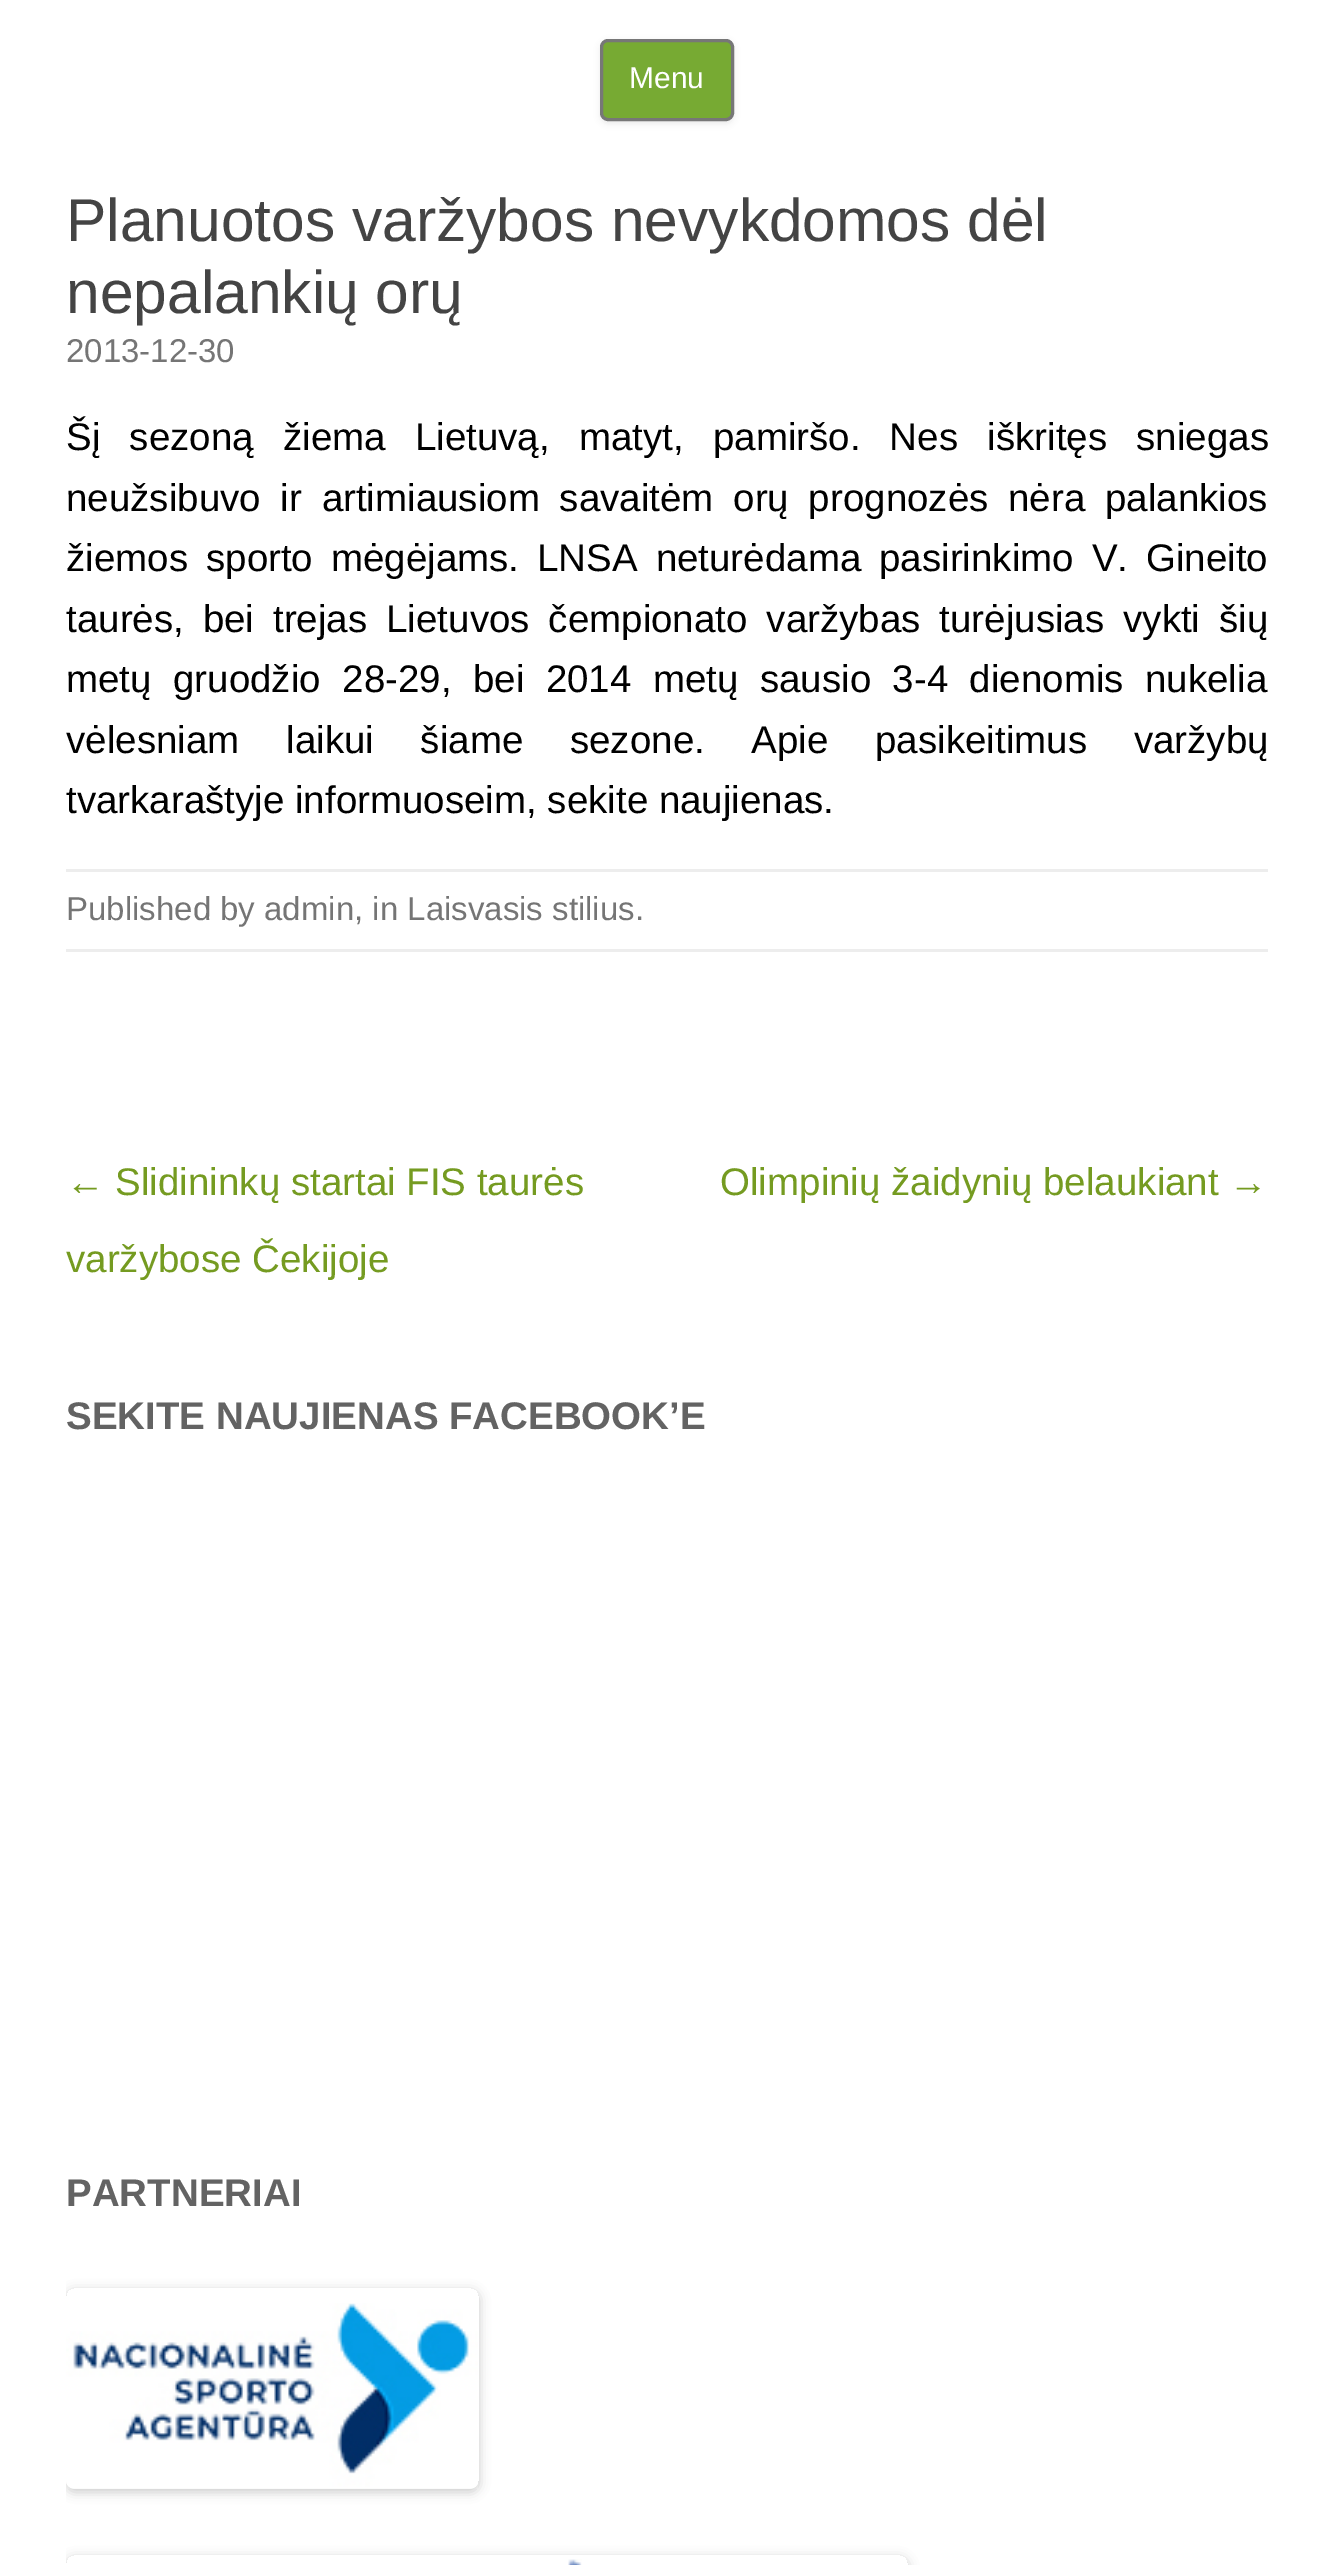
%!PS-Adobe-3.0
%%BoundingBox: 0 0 1333 2565
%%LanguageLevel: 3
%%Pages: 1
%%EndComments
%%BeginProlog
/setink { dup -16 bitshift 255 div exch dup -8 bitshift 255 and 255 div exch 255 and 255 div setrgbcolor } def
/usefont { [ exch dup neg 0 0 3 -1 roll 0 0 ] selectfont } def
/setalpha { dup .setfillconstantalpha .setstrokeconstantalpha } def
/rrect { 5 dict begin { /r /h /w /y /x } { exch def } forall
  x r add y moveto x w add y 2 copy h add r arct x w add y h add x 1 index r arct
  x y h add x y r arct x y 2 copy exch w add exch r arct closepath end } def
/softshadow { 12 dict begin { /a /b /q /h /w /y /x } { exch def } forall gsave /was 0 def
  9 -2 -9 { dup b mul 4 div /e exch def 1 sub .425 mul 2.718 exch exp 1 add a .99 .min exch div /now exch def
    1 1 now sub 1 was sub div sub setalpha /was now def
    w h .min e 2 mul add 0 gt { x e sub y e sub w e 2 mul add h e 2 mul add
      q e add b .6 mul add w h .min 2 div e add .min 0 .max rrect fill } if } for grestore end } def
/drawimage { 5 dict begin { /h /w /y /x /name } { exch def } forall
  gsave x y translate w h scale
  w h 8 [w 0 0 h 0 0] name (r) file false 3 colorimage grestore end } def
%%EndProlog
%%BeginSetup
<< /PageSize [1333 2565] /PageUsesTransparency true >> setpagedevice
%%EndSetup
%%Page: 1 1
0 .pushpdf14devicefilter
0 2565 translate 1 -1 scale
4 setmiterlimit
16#FFFFFF setink
0 0 1333 2565 rectfill
16#404040 setink
600 41 134 83 8 3 0.1 softshadow
16#77AA33 setink
601.5 40.5 131 79 6.5 rrect gsave fill grestore
16#777777 setink
3 setlinewidth
stroke
/LiberationSans-Regular 30 usefont
16#FFFFFF setink
629 88 moveto (Menu) show
/LiberationSans-Regular 60.5 usefont
16#444444 setink
66 241 moveto (Planuotos varžybos nevykdomos dėl) show
66 313 moveto (nepalankių orų) show
/LiberationSans-Regular 33 usefont
16#757575 setink
66 362 moveto (2013-12-30) show
/LiberationSans-Regular 38.5 usefont
16#000000 setink
66 450 moveto 18.5 0 32 (Šį sezoną žiema Lietuvą, matyt, pamiršo. Nes iškritęs sniegas) widthshow
66 511 moveto 9 0 32 (neužsibuvo ir artimiausiom savaitėm orų prognozės nėra palankios) widthshow
66 571 moveto 7.25 0 32 (žiemos sporto mėgėjams. LNSA neturėdama pasirinkimo V. Gineito) widthshow
66 632 moveto 8.25 0 32 (taurės, bei trejas Lietuvos čempionato varžybas turėjusias vykti šių) widthshow
66 692 moveto 10.75 0 32 (metų gruodžio 28-29, bei 2014 metų sausio 3-4 dienomis nukelia) widthshow
66 753 moveto 36 0 32 (vėlesniam laikui šiame sezone. Apie pasikeitimus varžybų) widthshow
66 813 moveto (tvarkaraštyje informuoseim, sekite naujienas.) show
16#EDEDED setink
66 869 1202 3 rectfill
66 949 1202 3 rectfill
/LiberationSans-Regular 33 usefont
16#757575 setink
66 920 moveto (Published by admin, in Laisvasis stilius.) show
/LiberationSans-Regular 38.5 usefont
16#759B21 setink
[
    [(← Slidininkų startai FIS taurės) 66 1195]
    [(varžybose Čekijoje) 66 1272]
    [(Olimpinių žaidynių belaukiant →) 720 1195]
] { aload pop moveto show } forall
/LiberationSans-Bold 38.5 usefont
16#636363 setink
66 1429 moveto (SEKITE NAUJIENAS FACEBOOK’E) show
66 2206 moveto (PARTNERIAI) show
gsave
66 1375 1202 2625 rectclip
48 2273 moveto 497 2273 lineto 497 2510 lineto 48 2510 lineto closepath 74 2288 moveto 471 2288 lineto 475.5 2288 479 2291.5 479 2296 curveto 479 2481 lineto 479 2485.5 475.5 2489 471 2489 curveto 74 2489 lineto 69.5 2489 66 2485.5 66 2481 curveto 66 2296 lineto 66 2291.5 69.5 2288 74 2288 curveto closepath eoclip newpath
16#000000 setink
66 2291 413 201 8 5.5 0.2 softshadow
grestore
(img1.raw) 66 2303 412 186 drawimage
gsave
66 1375 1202 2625 rectclip
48 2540 moveto 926 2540 lineto 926 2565 lineto 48 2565 lineto closepath 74 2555 moveto 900 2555 lineto 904.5 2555 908 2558.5 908 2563 curveto 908 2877 lineto 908 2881.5 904.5 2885 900 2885 curveto 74 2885 lineto 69.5 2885 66 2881.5 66 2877 curveto 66 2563 lineto 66 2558.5 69.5 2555 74 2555 curveto closepath eoclip newpath
16#000000 setink
66 2558 842 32 8 5.5 0.2 softshadow
grestore
(img2.raw) 568 2559 14 6 drawimage
.poppdf14devicefilter showpage
%%EOF
